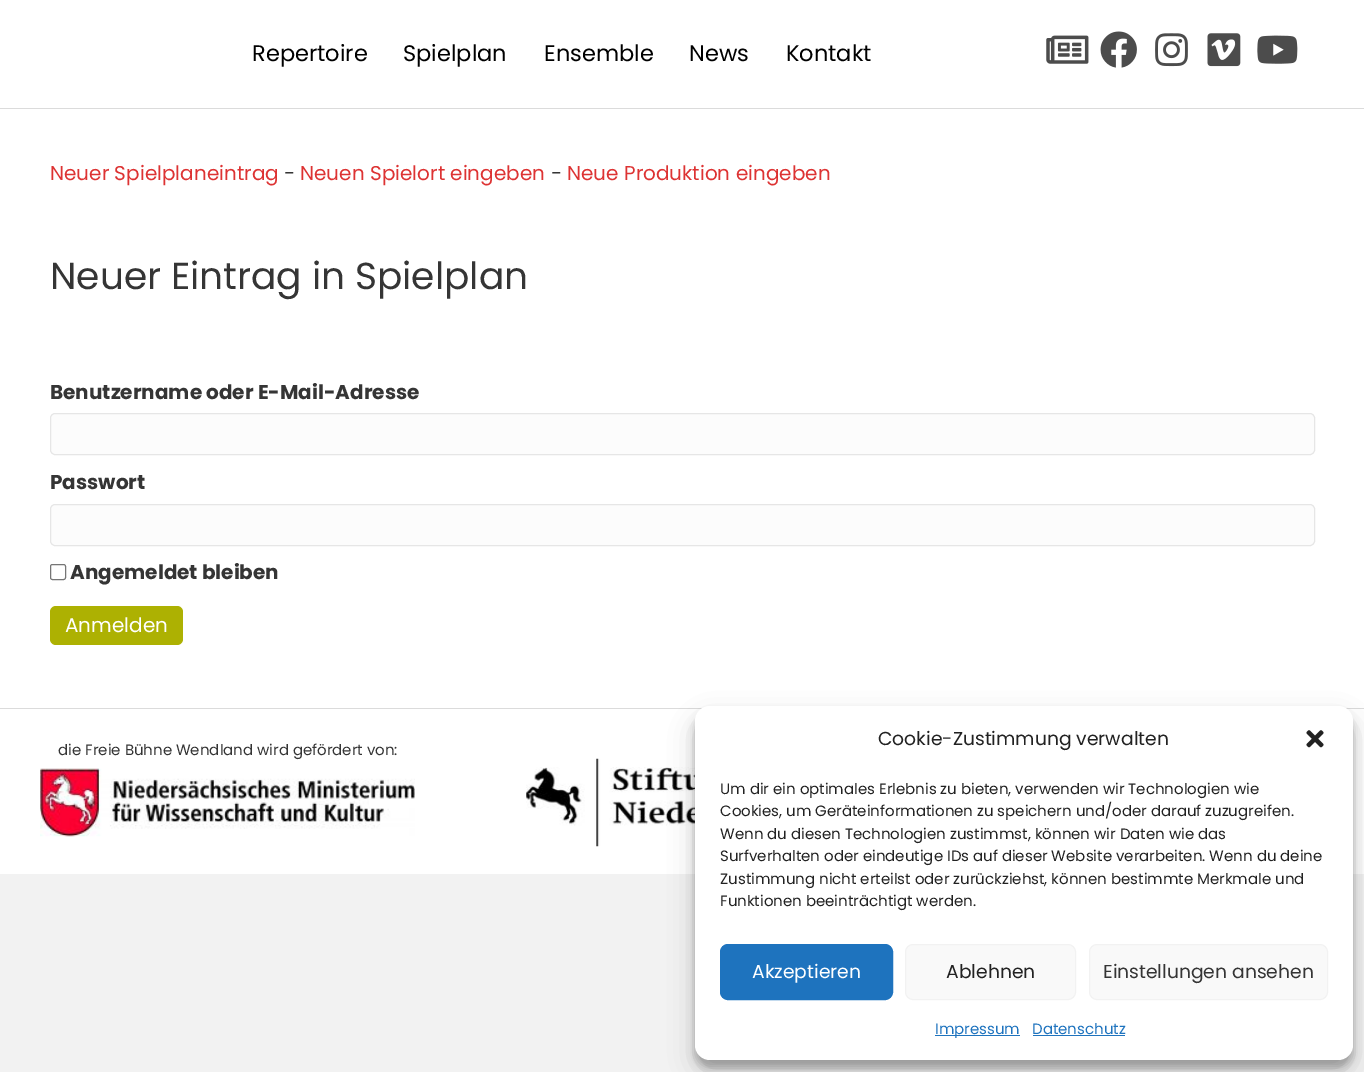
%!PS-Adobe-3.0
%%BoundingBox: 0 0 1364 1072
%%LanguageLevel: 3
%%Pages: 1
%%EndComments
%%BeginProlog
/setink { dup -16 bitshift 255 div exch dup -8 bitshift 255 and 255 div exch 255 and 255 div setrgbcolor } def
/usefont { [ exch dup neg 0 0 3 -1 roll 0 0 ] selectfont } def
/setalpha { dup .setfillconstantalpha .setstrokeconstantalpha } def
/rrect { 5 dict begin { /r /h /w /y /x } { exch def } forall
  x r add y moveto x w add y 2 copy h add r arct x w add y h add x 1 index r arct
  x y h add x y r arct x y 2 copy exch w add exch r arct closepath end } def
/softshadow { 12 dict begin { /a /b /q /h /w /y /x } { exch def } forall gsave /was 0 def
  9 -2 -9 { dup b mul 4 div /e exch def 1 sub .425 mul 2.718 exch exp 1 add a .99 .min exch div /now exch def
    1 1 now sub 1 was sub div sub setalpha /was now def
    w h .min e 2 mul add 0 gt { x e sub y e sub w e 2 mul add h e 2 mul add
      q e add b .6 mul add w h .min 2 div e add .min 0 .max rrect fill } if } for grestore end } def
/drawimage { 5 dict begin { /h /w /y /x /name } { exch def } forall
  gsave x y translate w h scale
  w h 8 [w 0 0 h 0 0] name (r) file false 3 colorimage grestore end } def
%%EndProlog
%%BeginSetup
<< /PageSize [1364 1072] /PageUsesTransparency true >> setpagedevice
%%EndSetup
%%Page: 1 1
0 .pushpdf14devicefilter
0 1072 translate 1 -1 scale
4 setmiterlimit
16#F2F2F2 setink
0 0 1364 1072 rectfill
16#FFFFFF setink
0 0 1364 108 rectfill
16#DBDBDB setink
0 108 1364 1 rectfill
/Poppins-Regular 22.5 usefont
16#000000 setink
[
    [(Repertoire) 252 61]
    [(Spielplan) 403 61]
    [(Ensemble) 544 61]
    [(News) 689 61]
    [(Kontakt) 786 61]
] { aload pop moveto show } forall
(img1.raw) 1046 35 43 29 drawimage
(img2.raw) 1100 31 37 37 drawimage
(img3.raw) 1155 33 33 34 drawimage
(img4.raw) 1207 33 34 34 drawimage
(img5.raw) 1257 35 41 29 drawimage
16#FFFFFF setink
0 109 1364 599 rectfill
/Poppins-Regular 20 usefont
16#DD3333 setink
50 180 moveto (Neuer Spielplaneintrag) show
16#353535 setink
284 180 moveto (-) show
16#DD3333 setink
300 180 moveto (Neuen Spielort eingeben) show
16#353535 setink
551 180 moveto (-) show
16#DD3333 setink
567 180 moveto (Neue Produktion eingeben) show
/Poppins-Regular 37.5 usefont
16#353535 setink
50 289 moveto (Neuer Eintrag in Spielplan) show
/Poppins-Bold 20 usefont
50 399 moveto (Benutzername oder E-Mail-Adresse) show
16#FCFCFC setink
50.5 413.5 1264 41 4.5 rrect gsave fill grestore
16#E6E6E6 setink
stroke
16#353535 setink
50 489 moveto (Passwort) show
16#FCFCFC setink
50.5 504.5 1264 41 4.5 rrect gsave fill grestore
16#E6E6E6 setink
stroke
16#767676 setink
50.5 564.5 15 15 2 rrect stroke
16#353535 setink
70 579 moveto (Angemeldet bleiben) show
16#ADB102 setink
50 606 133 39 6 rrect fill
/Poppins-Regular 20 usefont
16#FFFFFF setink
65 632 moveto (Anmelden) show
0 709 1364 165 rectfill
16#DBDBDB setink
0 708 1364 1 rectfill
/Poppins-Regular 15 usefont
16#353535 setink
58 755 moveto (die Freie Bühne Wendland wird gefördert von:) show
(img6.raw) 40 768 375 69 drawimage
(img7.raw) 526 758 169 89 drawimage
16#000000 setink
695 714 658 354 15 4 0.23 softshadow
695 719 658 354 15 12.5 0.19 softshadow
16#FFFFFF setink
695 706 658 354 15 rrect fill
/Poppins-Regular 18.75 usefont
16#222222 setink
878 745 moveto (Cookie-Zustimmung verwalten) show
(img8.raw) 1306 730 18 18 drawimage
/Poppins-Regular 15 usefont
[
    [(Um dir ein optimales Erlebnis zu bieten, verwenden wir Technologien wie) 720 794]
    [(Cookies, um Geräteinformationen zu speichern und/oder darauf zuzugreifen.) 720 816]
    [(Wenn du diesen Technologien zustimmst, können wir Daten wie das) 720 839]
    [(Surfverhalten oder eindeutige IDs auf dieser Website verarbeiten. Wenn du deine) 720 861]
    [(Zustimmung nicht erteilst oder zurückziehst, können bestimmte Merkmale und) 720 884]
    [(Funktionen beeinträchtigt werden.) 720 906]
] { aload pop moveto show } forall
16#1E73BE setink
720.5 944.5 172 55 7.5 rrect gsave fill grestore
stroke
/Poppins-Regular 18.75 usefont
16#FFFFFF setink
752 978 moveto (Akzeptieren) show
16#F9F9F9 setink
905.5 944.5 170 55 7.5 rrect gsave fill grestore
16#F2F2F2 setink
stroke
16#222222 setink
946 978 moveto (Ablehnen) show
16#F9F9F9 setink
1089.5 944.5 238 55 7.5 rrect gsave fill grestore
16#F2F2F2 setink
stroke
16#353535 setink
1103 978 moveto (Einstellungen ansehen) show
16#1E73BE setink
935 1035 85 1 rectfill
/Poppins-Regular 15 usefont
935 1034 moveto (Impressum) show
1032 1034 moveto (Datenschutz) show
1033 1035 92 1 rectfill
.poppdf14devicefilter showpage
%%EOF
